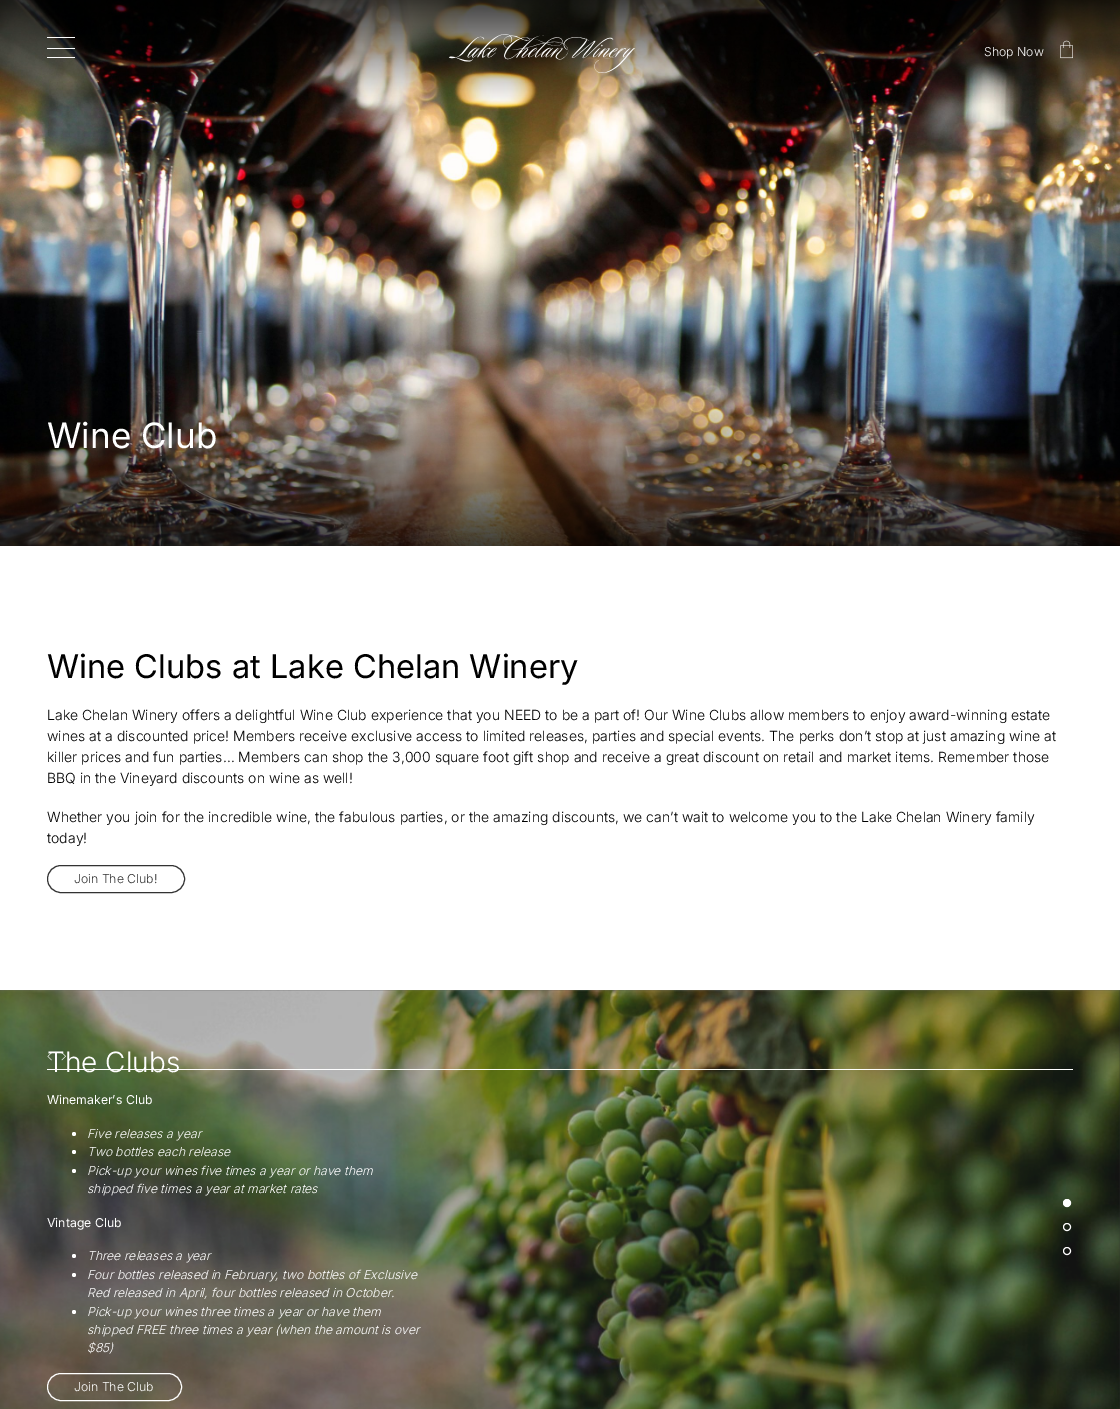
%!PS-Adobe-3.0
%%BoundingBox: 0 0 1120 1409
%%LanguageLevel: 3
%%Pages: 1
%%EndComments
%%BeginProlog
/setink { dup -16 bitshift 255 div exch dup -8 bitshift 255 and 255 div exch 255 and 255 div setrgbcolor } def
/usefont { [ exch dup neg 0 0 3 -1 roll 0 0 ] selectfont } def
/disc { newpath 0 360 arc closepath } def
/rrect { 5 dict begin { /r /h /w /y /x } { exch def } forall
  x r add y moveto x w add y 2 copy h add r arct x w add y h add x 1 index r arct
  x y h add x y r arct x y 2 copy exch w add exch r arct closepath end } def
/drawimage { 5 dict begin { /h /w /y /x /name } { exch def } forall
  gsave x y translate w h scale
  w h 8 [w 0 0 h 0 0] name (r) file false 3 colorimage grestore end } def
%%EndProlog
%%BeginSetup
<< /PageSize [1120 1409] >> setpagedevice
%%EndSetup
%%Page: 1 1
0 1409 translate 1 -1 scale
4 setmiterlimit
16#FFFFFF setink
0 0 1120 1409 rectfill
(img3.raw) 0 0 1120 546 drawimage
47 37 28 1 0.5 rrect fill
47 48 28 1 0.5 rrect fill
47 57 28 1 0.5 rrect fill
(img1.raw) 449 34 186 39 drawimage
/Inter-Light 12.25 usefont
984 56 moveto (Shop Now) show
(img2.raw) 1060 40 13 19 drawimage
/Inter-Regular 35 usefont
47 448 moveto (Wine Club) show
/Inter-Regular 32.6 usefont
16#000000 setink
47 678 moveto (Wine Clubs at Lake Chelan Winery) show
/Inter-Light 14 usefont
[
    [(Lake Chelan Winery offers a delightful Wine Club experience that you NEED to be a part of! Our Wine Clubs allow members to enjoy award-winning estate) 47 720]
    [(wines at a discounted price! Members receive exclusive access to limited releases, parties and special events. The perks don’t stop at just amazing wine at) 47 741]
    [(killer prices and fun parties… Members can shop the 3,000 square foot gift shop and receive a great discount on retail and market items. Remember those) 47 762]
    [(BBQ in the Vineyard discounts on wine as well!) 47 783]
    [(Whether you join for the incredible wine, the fabulous parties, or the amazing discounts, we can’t wait to welcome you to the Lake Chelan Winery family) 47 822]
    [(today!) 47 843]
] { aload pop moveto show } forall
16#333333 setink
47.5 865.5 137 27 13.5 rrect stroke
/Inter-Light 12.25 usefont
74 883 moveto (Join The Club!) show
0 990 1120 419 rectfill
(img4.raw) 0 990 1120 419 drawimage
/Inter-Light 28 usefont
16#FFFFFF setink
47 1072 moveto (The Clubs) show
/Inter-Regular 12.25 usefont
47 1104 moveto (Winemaker’s Club) show
74 1134 2 disc fill
/Inter-LightItalic 12.25 usefont
87 1138 moveto (Five releases a year) show
74 1152 2 disc fill
87 1156 moveto (Two bottles each release) show
74 1171 2 disc fill
87 1175 moveto (Pick-up your wines five times a year or have them) show
87 1193 moveto (shipped five times a year at market rates) show
/Inter-Regular 12.25 usefont
47 1227 moveto (Vintage Club) show
74 1256 2 disc fill
/Inter-LightItalic 12.25 usefont
87 1260 moveto (Three releases a year) show
74 1275 2 disc fill
87 1279 moveto (Four bottles released in February, two bottles of Exclusive) show
87 1297 moveto (Red released in April, four bottles released in October.) show
74 1312 2 disc fill
[
    [(Pick-up your wines three times a year or have them) 87 1316]
    [(shipped FREE three times a year \(when the amount is over) 87 1334]
    [($85\)) 87 1352]
] { aload pop moveto show } forall
47.5 1373.5 134 27 13.5 rrect stroke
/Inter-Light 12.25 usefont
74 1391 moveto (Join The Club) show
1067 1203 3.5 disc gsave fill grestore
stroke
1067 1227 3.5 disc stroke
1067 1251 3.5 disc stroke
47 1069 1026 1 rectfill
(img5.raw) 47 1053 5 8 drawimage
(img6.raw) 61 1053 5 8 drawimage
showpage
%%EOF
